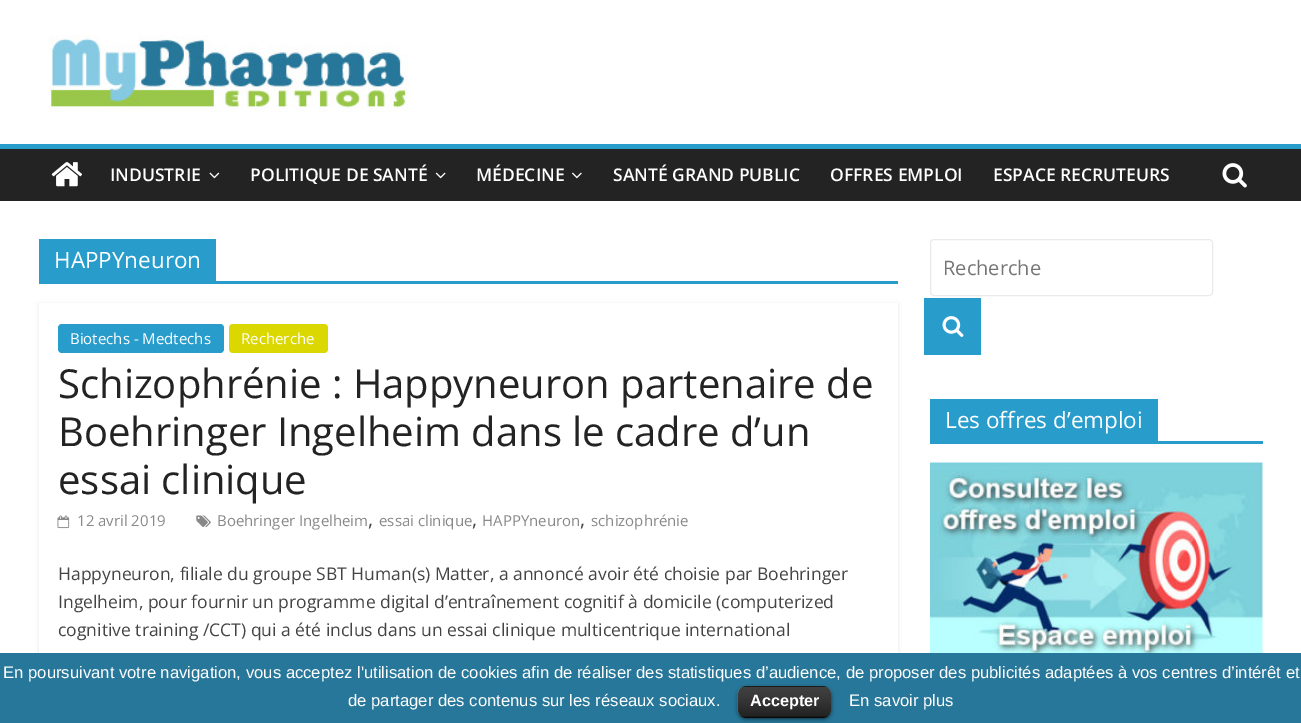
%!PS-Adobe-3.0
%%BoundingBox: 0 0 1301 723
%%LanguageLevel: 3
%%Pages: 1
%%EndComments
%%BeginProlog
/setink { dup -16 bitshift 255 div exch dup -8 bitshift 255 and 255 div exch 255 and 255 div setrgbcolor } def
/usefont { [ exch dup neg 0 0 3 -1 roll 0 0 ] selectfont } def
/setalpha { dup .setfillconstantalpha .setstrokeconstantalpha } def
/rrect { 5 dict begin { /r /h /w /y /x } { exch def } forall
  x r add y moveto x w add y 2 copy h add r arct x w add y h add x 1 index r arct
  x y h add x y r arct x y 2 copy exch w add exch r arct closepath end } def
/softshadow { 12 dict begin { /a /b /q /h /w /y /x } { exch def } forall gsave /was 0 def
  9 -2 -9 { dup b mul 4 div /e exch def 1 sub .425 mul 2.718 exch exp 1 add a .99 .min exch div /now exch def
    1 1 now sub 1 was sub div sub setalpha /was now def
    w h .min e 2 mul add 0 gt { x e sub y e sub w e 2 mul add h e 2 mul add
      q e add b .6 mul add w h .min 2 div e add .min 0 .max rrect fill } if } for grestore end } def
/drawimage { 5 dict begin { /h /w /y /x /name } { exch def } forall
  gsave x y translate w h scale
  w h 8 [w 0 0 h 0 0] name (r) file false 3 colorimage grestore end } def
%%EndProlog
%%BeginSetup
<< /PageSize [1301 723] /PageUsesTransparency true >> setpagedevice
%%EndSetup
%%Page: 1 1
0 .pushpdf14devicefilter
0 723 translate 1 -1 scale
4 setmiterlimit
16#FFFFFF setink
0 0 1301 723 rectfill
(img1.raw) 49 35 360 78 drawimage
16#232323 setink
0 149 1301 52 rectfill
16#289DCC setink
0 144 1301 5 rectfill
(img2.raw) 51 162 32 25 drawimage
/OpenSans-SemiBold 17.5 usefont
16#FFFFFF setink
110 181 moveto (INDUSTRIE) show
(img3.raw) 209 172 11 7 drawimage
250 181 moveto (POLITIQUE DE SANTÉ) show
(img4.raw) 435 172 11 7 drawimage
476 181 moveto (MÉDECINE) show
(img5.raw) 572 172 10 7 drawimage
[
    [(SANTÉ GRAND PUBLIC) 613 181]
    [(OFFRES EMPLOI) 830 181]
    [(ESPACE RECRUTEURS) 993 181]
] { aload pop moveto show } forall
(img6.raw) 1222 163 25 25 drawimage
16#289DCC setink
39 281 859 3 rectfill
39 239 177 42 rectfill
/OpenSans-Regular 22.5 usefont
16#FFFFFF setink
54 268 moveto (HAPPYneuron) show
gsave
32 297 moveto 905 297 lineto 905 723 lineto 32 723 lineto closepath 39 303 moveto 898 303 lineto 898 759 lineto 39 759 lineto closepath eoclip newpath
16#000000 setink
39 304 859 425 0 2 0.1 softshadow
grestore
16#289DCC setink
58 324 166 29 4 rrect fill
/OpenSans-Regular 15 usefont
16#FFFFFF setink
70 344 moveto (Biotechs - Medtechs) show
16#DBD700 setink
229 324 99 29 4 rrect fill
16#FFFFFF setink
241 344 moveto (Recherche) show
/OpenSans-Regular 40 usefont
16#232323 setink
[
    [(Schizophrénie : Happyneuron partenaire de) 58 398]
    [(Boehringer Ingelheim dans le cadre d’un) 58 446]
    [(essai clinique) 58 494]
] { aload pop moveto show } forall
(img7.raw) 57 515 13 14 drawimage
/OpenSans-Regular 15 usefont
16#888888 setink
77 526 moveto (12 avril 2019) show
(img8.raw) 196 515 15 12 drawimage
217 526 moveto (Boehringer Ingelheim) show
/OpenSans-Regular 20 usefont
16#444444 setink
368 526 moveto (,) show
/OpenSans-Regular 15 usefont
16#888888 setink
379 526 moveto (essai clinique) show
/OpenSans-Regular 20 usefont
16#444444 setink
472 526 moveto (,) show
/OpenSans-Regular 15 usefont
16#888888 setink
482 526 moveto (HAPPYneuron) show
/OpenSans-Regular 20 usefont
16#444444 setink
580 526 moveto (,) show
/OpenSans-Regular 15 usefont
16#888888 setink
591 526 moveto (schizophrénie) show
/OpenSans-Regular 17.5 usefont
16#444444 setink
[
    [(Happyneuron, filiale du groupe SBT Human\(s\) Matter, a annoncé avoir été choisie par Boehringer) 58 580]
    [(Ingelheim, pour fournir un programme digital d’entraînement cognitif à domicile \(computerized) 58 608]
    [(cognitive training /CCT\) qui a été inclus dans un essai clinique multicentrique international) 58 636]
] { aload pop moveto show } forall
16#EAEAEA setink
930.5 239.5 282 56 3.5 rrect stroke
/OpenSans-Regular 20 usefont
16#757575 setink
943 275 moveto (Recherche) show
16#289DCC setink
924 298 57 57 rectfill
(img9.raw) 942 316 22 21 drawimage
930 441 333 3 rectfill
930 399 228 42 rectfill
/OpenSans-Regular 22.5 usefont
16#FFFFFF setink
945 428 moveto (Les offres d’emploi) show
(img10.raw) 930 462 333 191 drawimage
16#27779A setink
0 653 1301 70 rectfill
/LiberationSans-Regular 16.67 usefont
16#FFFFFF setink
3 678 moveto (En poursuivant votre navigation, vous acceptez l'utilisation de cookies afin de réaliser des statistiques d’audience, de proposer des publicités adaptées à vos centres d’intérêt et) show
348 706 moveto (de partager des contenus sur les réseaux sociaux.) show
16#000000 setink
738 688 93 31 8 2 0.6 softshadow
738 686 93 32 8 rrect fill
(img11.raw) 737 686 94 32 drawimage
0.25 setalpha
741 716 87 1 rectfill
/LiberationSans-Bold 16.25 usefont
1 setalpha
16#FFFFFF setink
750 706 moveto (Accepter) show
/LiberationSans-Regular 16.67 usefont
849 706 moveto (En savoir plus) show
.poppdf14devicefilter showpage
%%EOF
